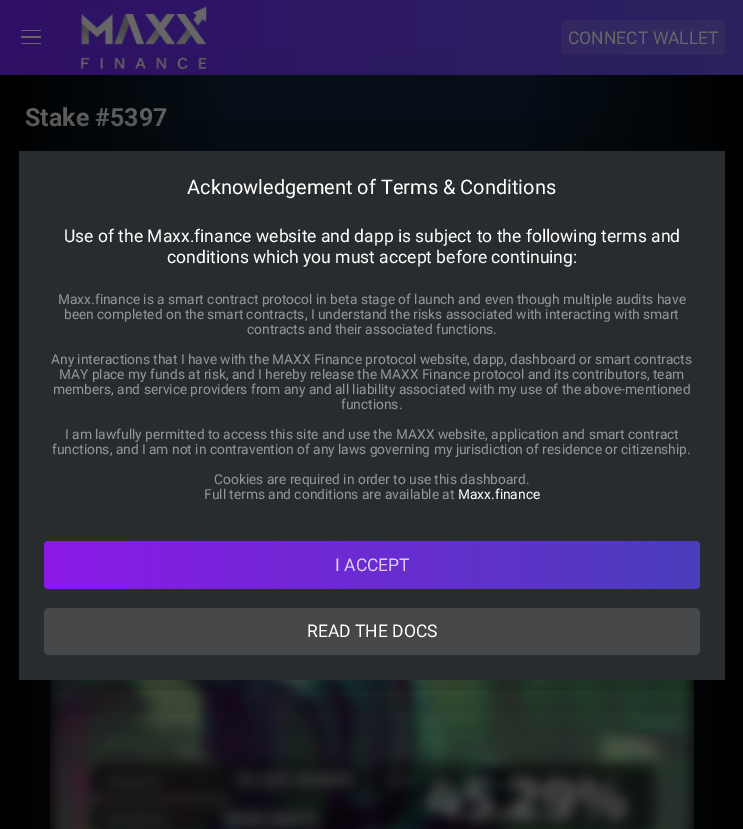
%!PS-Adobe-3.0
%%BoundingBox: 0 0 743 829
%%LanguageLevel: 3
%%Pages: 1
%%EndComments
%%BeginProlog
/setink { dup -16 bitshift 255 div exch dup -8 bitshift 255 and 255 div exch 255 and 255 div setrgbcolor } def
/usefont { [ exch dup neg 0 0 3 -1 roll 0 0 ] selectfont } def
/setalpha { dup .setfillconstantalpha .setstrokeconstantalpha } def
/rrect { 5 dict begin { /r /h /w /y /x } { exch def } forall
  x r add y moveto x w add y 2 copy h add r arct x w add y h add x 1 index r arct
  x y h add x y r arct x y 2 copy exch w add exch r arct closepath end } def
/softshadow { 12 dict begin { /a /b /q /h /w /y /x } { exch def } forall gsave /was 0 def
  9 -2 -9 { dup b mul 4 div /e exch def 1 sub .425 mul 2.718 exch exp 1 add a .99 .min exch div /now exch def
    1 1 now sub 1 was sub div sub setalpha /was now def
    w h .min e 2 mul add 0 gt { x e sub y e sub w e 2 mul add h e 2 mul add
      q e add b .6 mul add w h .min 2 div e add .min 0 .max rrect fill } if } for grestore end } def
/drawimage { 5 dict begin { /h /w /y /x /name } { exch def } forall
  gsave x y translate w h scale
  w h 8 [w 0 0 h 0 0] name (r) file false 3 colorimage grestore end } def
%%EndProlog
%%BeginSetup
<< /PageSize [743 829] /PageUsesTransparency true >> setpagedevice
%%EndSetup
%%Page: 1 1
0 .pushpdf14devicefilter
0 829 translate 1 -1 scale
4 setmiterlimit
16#FFFFFF setink
0 0 743 829 rectfill
gsave 0 75 moveto 743 75 lineto 743 829 lineto 0 829 lineto closepath clip newpath
<< /ShadingType 2 /ColorSpace /DeviceRGB /Coords [0 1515 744 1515] /Extend [true true] /Function << /FunctionType 3 /Domain [0 1] /Functions [<< /FunctionType 2 /Domain [0 1] /C0 [0 0 0] /C1 [0.024 0.059 0.094] /N 1 >> << /FunctionType 2 /Domain [0 1] /C0 [0.024 0.059 0.094] /C1 [0.024 0.059 0.094] /N 1 >> << /FunctionType 2 /Domain [0 1] /C0 [0.024 0.059 0.094] /C1 [0 0 0] /N 1 >>] /Bounds [0.3 0.7] /Encode [0 1 0 1 0 1] >> >> shfill grestore
gsave 0 0 moveto 743 0 lineto 743 75 lineto 0 75 lineto closepath clip newpath
<< /ShadingType 2 /ColorSpace /DeviceRGB /Coords [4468 147 -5.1 303] /Extend [true true] /Function << /FunctionType 3 /Domain [0 1] /Functions [<< /FunctionType 2 /Domain [0 1] /C0 [0.145 0.102 0.384] /C1 [0.133 0.278 0.322] /N 1 >> << /FunctionType 2 /Domain [0 1] /C0 [0.133 0.278 0.322] /C1 [0.184 0.059 0.4] /N 1 >>] /Bounds [0.5] /Encode [0 1 0 1] >> >> shfill grestore
[
    [21 30 20 1 16#666666]
    [21 36 20 2 16#666666]
    [21 43 20 1 16#666666]
] { aload pop setink rectfill } forall
(img1.raw) 81 6 126 63 drawimage
0.13 setalpha
561 20 164 35 5 rrect fill
/Roboto-Regular 17.5 usefont
1 setalpha
568 44 moveto (CONNECT WALLET) show
/Roboto-Bold 25 usefont
25 126 moveto (Stake #5397) show
(img2.raw) 50 680 644 149 drawimage
16#000000 setink
19 151 706 529 0 44 0.48 softshadow
16#292C2E setink
19 151 706 529 rectfill
/Roboto-Regular 20 usefont
16#FFFFFF setink
187 194 moveto (Acknowledgement of Terms & Conditions) show
/Roboto-Regular 17.5 usefont
64 242 moveto (Use of the Maxx.finance website and dapp is subject to the following terms and) show
167 263 moveto (conditions which you must accept before continuing:) show
/Roboto-Regular 13.75 usefont
16#949697 setink
[
    [(Maxx.finance is a smart contract protocol in beta stage of launch and even though multiple audits have) 58 304]
    [(been completed on the smart contracts, I understand the risks associated with interacting with smart) 64 319]
    [(contracts and their associated functions.) 247 334]
    [(Any interactions that I have with the MAXX Finance protocol website, dapp, dashboard or smart contracts) 51 364]
    [(MAY place my funds at risk, and I hereby release the MAXX Finance protocol and its contributors, team) 59 379]
    [(members, and service providers from any and all liability associated with my use of the above-mentioned) 53 394]
    [(functions.) 341 409]
    [(I am lawfully permitted to access this site and use the MAXX website, application and smart contract) 65 439]
    [(functions, and I am not in contravention of any laws governing my jurisdiction of residence or citizenship.) 52 454]
    [(Cookies are required in order to use this dashboard.) 214 484]
    [(Full terms and conditions are available at) 204 499]
] { aload pop moveto show } forall
16#FFFFFF setink
458 499 moveto (Maxx.finance) show
gsave 44 541 656 48 5 rrect clip newpath
<< /ShadingType 2 /ColorSpace /DeviceRGB /Coords [44 565 700 565] /Extend [true true] /Function << /FunctionType 2 /Domain [0 1] /C0 [0.549 0.102 0.91] /C1 [0.29 0.243 0.733] /N 1 >> >> shfill grestore
/Roboto-Regular 17.5 usefont
16#DDCEF5 setink
335 571 moveto (I ACCEPT) show
16#454749 setink
44 608 656 47 5 rrect fill
16#FFFFFF setink
307 637 moveto (READ THE DOCS) show
.poppdf14devicefilter showpage
%%EOF
